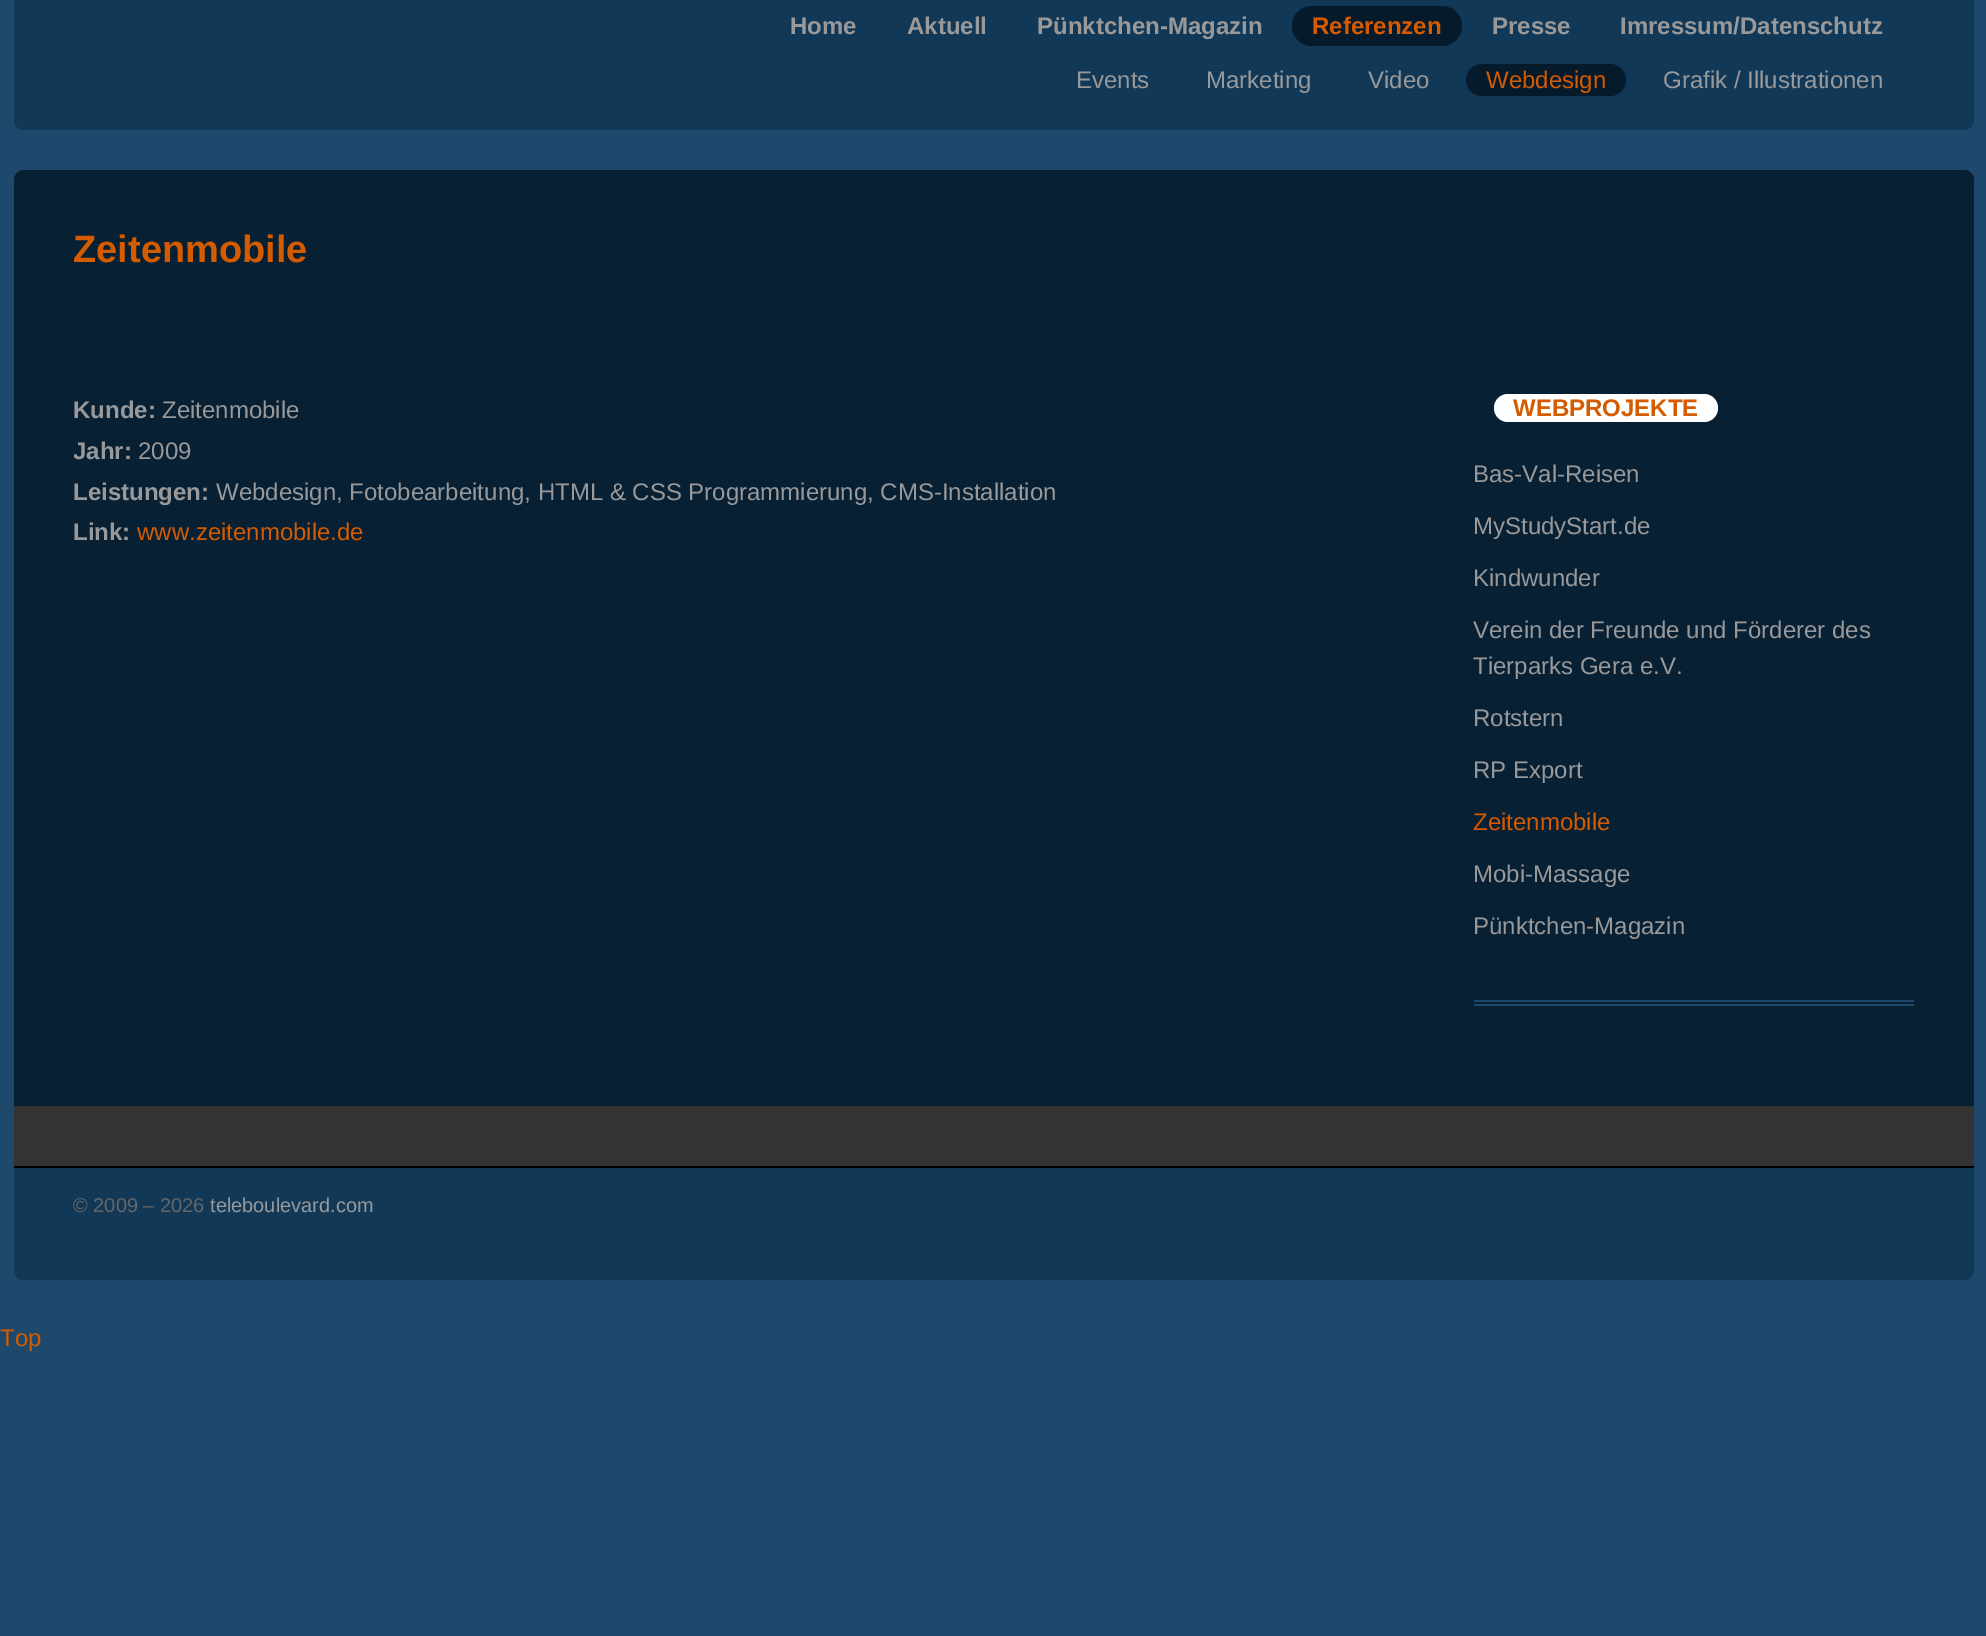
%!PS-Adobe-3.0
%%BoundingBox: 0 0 1986 1636
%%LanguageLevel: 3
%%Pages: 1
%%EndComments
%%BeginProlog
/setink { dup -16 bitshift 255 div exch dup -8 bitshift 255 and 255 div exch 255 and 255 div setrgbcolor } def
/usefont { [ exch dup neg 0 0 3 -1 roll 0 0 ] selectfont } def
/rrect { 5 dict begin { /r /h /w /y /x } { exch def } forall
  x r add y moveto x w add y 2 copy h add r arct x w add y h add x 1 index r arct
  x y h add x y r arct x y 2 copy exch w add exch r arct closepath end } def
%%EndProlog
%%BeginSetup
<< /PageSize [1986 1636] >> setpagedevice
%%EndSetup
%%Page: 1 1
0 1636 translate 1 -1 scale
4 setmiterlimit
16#1E496C setink
0 0 1986 1636 rectfill
16#113857 setink
14 0 moveto 1974 0 lineto 1974 120 lineto 1974 125.5 1969.5 130 1964 130 curveto 24 130 lineto 18.5 130 14 125.5 14 120 curveto closepath fill
/LiberationSans-Bold 24 usefont
16#999999 setink
[
    [(Home) 790 34]
    [(Aktuell) 907 34]
    [(Pünktchen-Magazin) 1037 34]
] { aload pop moveto show } forall
16#051A2B setink
1292 6 170 40 20 rrect fill
16#D55B00 setink
1312 34 moveto (Referenzen) show
16#999999 setink
1492 34 moveto (Presse) show
1620 34 moveto (Imressum/Datenschutz) show
/LiberationSans-Regular 24 usefont
[
    [(Events) 1076 88]
    [(Marketing) 1206 88]
    [(Video) 1368 88]
] { aload pop moveto show } forall
16#051A2B setink
1466 64 160 32 16 rrect fill
16#D55B00 setink
1486 88 moveto (Webdesign) show
16#999999 setink
1663 88 moveto (Grafik / Illustrationen) show
16#082034 setink
24 170 moveto 1964 170 lineto 1969.5 170 1974 174.5 1974 180 curveto 1974 1106 lineto 14 1106 lineto 14 180 lineto 14 174.5 18.5 170 24 170 curveto closepath fill
/LiberationSans-Bold 38 usefont
16#D55B00 setink
73 262 moveto (Zeitenmobile) show
/LiberationSans-Bold 24 usefont
16#999999 setink
73 418 moveto (Kunde:) show
/LiberationSans-Regular 24 usefont
162 418 moveto (Zeitenmobile) show
gsave
74 390 1340 268 rectclip
/LiberationSans-Bold 24 usefont
73 459 moveto (Jahr:) show
grestore
138 459 moveto (2009) show
/LiberationSans-Bold 24 usefont
73 500 moveto (Leistungen:) show
/LiberationSans-Regular 24 usefont
216 500 moveto (Webdesign, Fotobearbeitung, HTML & CSS Programmierung, CMS-Installation) show
/LiberationSans-Bold 24 usefont
73 540 moveto (Link:) show
/LiberationSans-Regular 24 usefont
16#D55B00 setink
137 540 moveto (www.zeitenmobile.de) show
16#1E496C setink
1474 1000 440 2 rectfill
1474 1004 440 2 rectfill
16#FFFFFF setink
1494 394 224 28 14 rrect fill
/LiberationSans-Bold 24 usefont
16#D55B00 setink
1513 416 moveto (WEBPROJEKTE) show
/LiberationSans-Regular 24 usefont
16#999999 setink
[
    [(Bas-Val-Reisen) 1473 482]
    [(MyStudyStart.de) 1473 534]
    [(Kindwunder) 1473 586]
    [(Verein der Freunde und Förderer des) 1473 638]
    [(Tierparks Gera e.V.) 1473 674]
    [(Rotstern) 1473 726]
    [(RP Export) 1473 778]
] { aload pop moveto show } forall
16#D55B00 setink
1473 830 moveto (Zeitenmobile) show
16#999999 setink
1473 882 moveto (Mobi-Massage) show
1473 934 moveto (Pünktchen-Magazin) show
16#333333 setink
14 1106 moveto 1974 1106 lineto 1974 1270 lineto 1974 1275.5 1969.5 1280 1964 1280 curveto 24 1280 lineto 18.5 1280 14 1275.5 14 1270 curveto closepath fill
16#113857 setink
14 1166 moveto 1974 1166 lineto 1974 1270 lineto 1974 1275.5 1969.5 1280 1964 1280 curveto 24 1280 lineto 18.5 1280 14 1275.5 14 1270 curveto closepath fill
16#000000 setink
14 1166 1960 2 rectfill
/LiberationSans-Regular 20 usefont
16#666666 setink
73 1212 moveto (© 2009 – 2026) show
16#999999 setink
210 1212 moveto (teleboulevard.com) show
/LiberationSans-Regular 24 usefont
16#D55B00 setink
0 1346 moveto (Top) show
showpage
%%EOF
